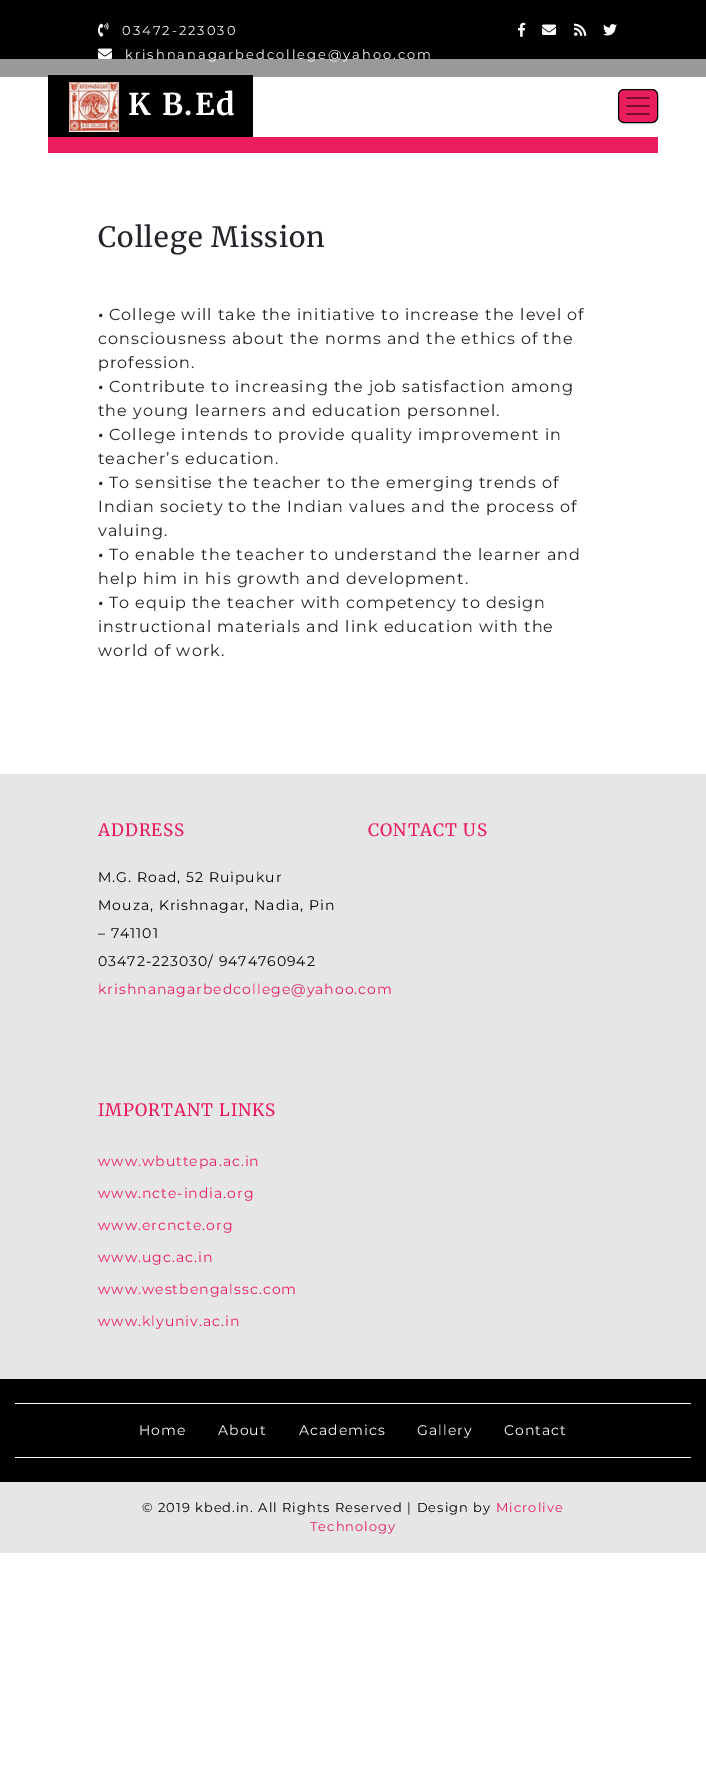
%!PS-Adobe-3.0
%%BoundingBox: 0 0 706 1789
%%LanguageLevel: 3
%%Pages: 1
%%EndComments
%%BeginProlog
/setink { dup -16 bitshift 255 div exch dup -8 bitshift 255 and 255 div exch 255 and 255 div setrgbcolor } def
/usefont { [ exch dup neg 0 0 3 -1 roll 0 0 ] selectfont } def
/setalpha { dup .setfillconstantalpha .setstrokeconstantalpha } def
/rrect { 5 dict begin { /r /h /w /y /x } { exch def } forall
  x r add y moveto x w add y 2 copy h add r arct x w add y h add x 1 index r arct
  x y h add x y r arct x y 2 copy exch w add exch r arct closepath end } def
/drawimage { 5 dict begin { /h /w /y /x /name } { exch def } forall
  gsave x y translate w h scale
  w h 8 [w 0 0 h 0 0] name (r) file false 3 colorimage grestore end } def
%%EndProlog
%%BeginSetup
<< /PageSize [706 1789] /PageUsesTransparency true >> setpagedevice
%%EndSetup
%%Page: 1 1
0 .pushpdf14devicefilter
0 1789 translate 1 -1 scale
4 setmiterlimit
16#FFFFFF setink
0 0 706 1789 rectfill
16#000000 setink
0 0 706 77 rectfill
(img1.raw) 98 22 11 15 drawimage
/Montserrat-Regular 13 usefont
16#FFFFFF setink
122 35 moveto 2 0 (03472-223030) ashow
(img2.raw) 98 48 14 11 drawimage
125 59 moveto 2 0 (krishnanagarbedcollege@yahoo.com) ashow
(img3.raw) 518 22 8 15 drawimage
(img2.raw) 542 24 14 11 drawimage
(img4.raw) 574 23 13 13 drawimage
(img5.raw) 603 24 14 12 drawimage
0.6 setalpha
0 59 706 18 rectfill
1 setalpha
16#000000 setink
48 75 205 62 rectfill
(img6.raw) 69 82 50 50 drawimage
/Merriweather-Bold 30 usefont
16#FFFFFF setink
128 115 moveto 2 0 (K B.Ed) ashow
16#EA1D5D setink
618.5 89.5 39 33 5.5 rrect gsave fill grestore
16#000000 setink
stroke
(img7.raw) 626 97 24 18 drawimage
16#EA1D5D setink
48 137 610 16 rectfill
/Merriweather-Regular 28 usefont
16#212529 setink
98 247 moveto 1 0 (College Mission) ashow
/Montserrat-Bold 16 usefont
98 320 moveto 1 0 (•) ashow
/Montserrat-Regular 16 usefont
109 320 moveto 1 0 (College will take the initiative to increase the level of) ashow
98 344 moveto 1 0 (consciousness about the norms and the ethics of the) ashow
98 368 moveto 1 0 (profession.) ashow
/Montserrat-Bold 16 usefont
98 392 moveto 1 0 (•) ashow
/Montserrat-Regular 16 usefont
109 392 moveto 1 0 (Contribute to increasing the job satisfaction among) ashow
98 416 moveto 1 0 (the young learners and education personnel.) ashow
/Montserrat-Bold 16 usefont
98 440 moveto 1 0 (•) ashow
/Montserrat-Regular 16 usefont
109 440 moveto 1 0 (College intends to provide quality improvement in) ashow
98 464 moveto 1 0 (teacher’s education.) ashow
/Montserrat-Bold 16 usefont
98 488 moveto 1 0 (•) ashow
/Montserrat-Regular 16 usefont
109 488 moveto 1 0 (To sensitise the teacher to the emerging trends of) ashow
98 512 moveto 1 0 (Indian society to the Indian values and the process of) ashow
98 536 moveto 1 0 (valuing.) ashow
/Montserrat-Bold 16 usefont
98 560 moveto 1 0 (•) ashow
/Montserrat-Regular 16 usefont
109 560 moveto 1 0 (To enable the teacher to understand the learner and) ashow
98 584 moveto 1 0 (help him in his growth and development.) ashow
/Montserrat-Bold 16 usefont
98 608 moveto 1 0 (•) ashow
/Montserrat-Regular 16 usefont
109 608 moveto 1 0 (To equip the teacher with competency to design) ashow
98 632 moveto 1 0 (instructional materials and link education with the) ashow
98 656 moveto 1 0 (world of work.) ashow
16#E6E6E6 setink
0 774 706 605 rectfill
/Merriweather-Regular 17 usefont
16#EA1D5D setink
98 836 moveto 1 0 (ADDRESS) ashow
/Montserrat-Regular 14 usefont
16#000000 setink
98 882 moveto 1 0 (M.G. Road, 52 Ruipukur) ashow
98 910 moveto 1 0 (Mouza, Krishnagar, Nadia, Pin) ashow
98 938 moveto 1 0 (– 741101) ashow
98 966 moveto 1 0 (03472-223030/ 9474760942) ashow
16#EA1D5D setink
98 994 moveto 1 0 (krishnanagarbedcollege@yahoo.com) ashow
/Merriweather-Regular 17 usefont
368 836 moveto 1 0 (CONTACT US) ashow
98 1116 moveto 1 0 (IMPORTANT LINKS) ashow
/Montserrat-Regular 14 usefont
98 1166 moveto 1 0 (www.wbuttepa.ac.in) ashow
98 1198 moveto 1 0 (www.ncte-india.org) ashow
98 1230 moveto 1 0 (www.ercncte.org) ashow
98 1262 moveto 1 0 (www.ugc.ac.in) ashow
98 1294 moveto 1 0 (www.westbengalssc.com) ashow
98 1326 moveto 1 0 (www.klyuniv.ac.in) ashow
[
    [0 1379 706 103 16#000000]
    [15 1403 676 1 16#FFFFFF]
    [15 1457 676 1 16#FFFFFF]
] { aload pop setink rectfill } forall
139 1435 moveto 1 0 (Home) ashow
218 1435 moveto 1 0 (About) ashow
299 1435 moveto 1 0 (Academics) ashow
417 1435 moveto 1 0 (Gallery) ashow
504 1435 moveto 1 0 (Contact) ashow
16#E6E6E6 setink
0 1482 706 71 rectfill
/Montserrat-Regular 13 usefont
16#000000 setink
142 1512 moveto 1 0 (© 2019 kbed.in. All Rights Reserved | Design by) ashow
16#EA1D5D setink
496 1512 moveto 1 0 (Microlive) ashow
310 1531 moveto 1 0 (Technology) ashow
.poppdf14devicefilter showpage
%%EOF
